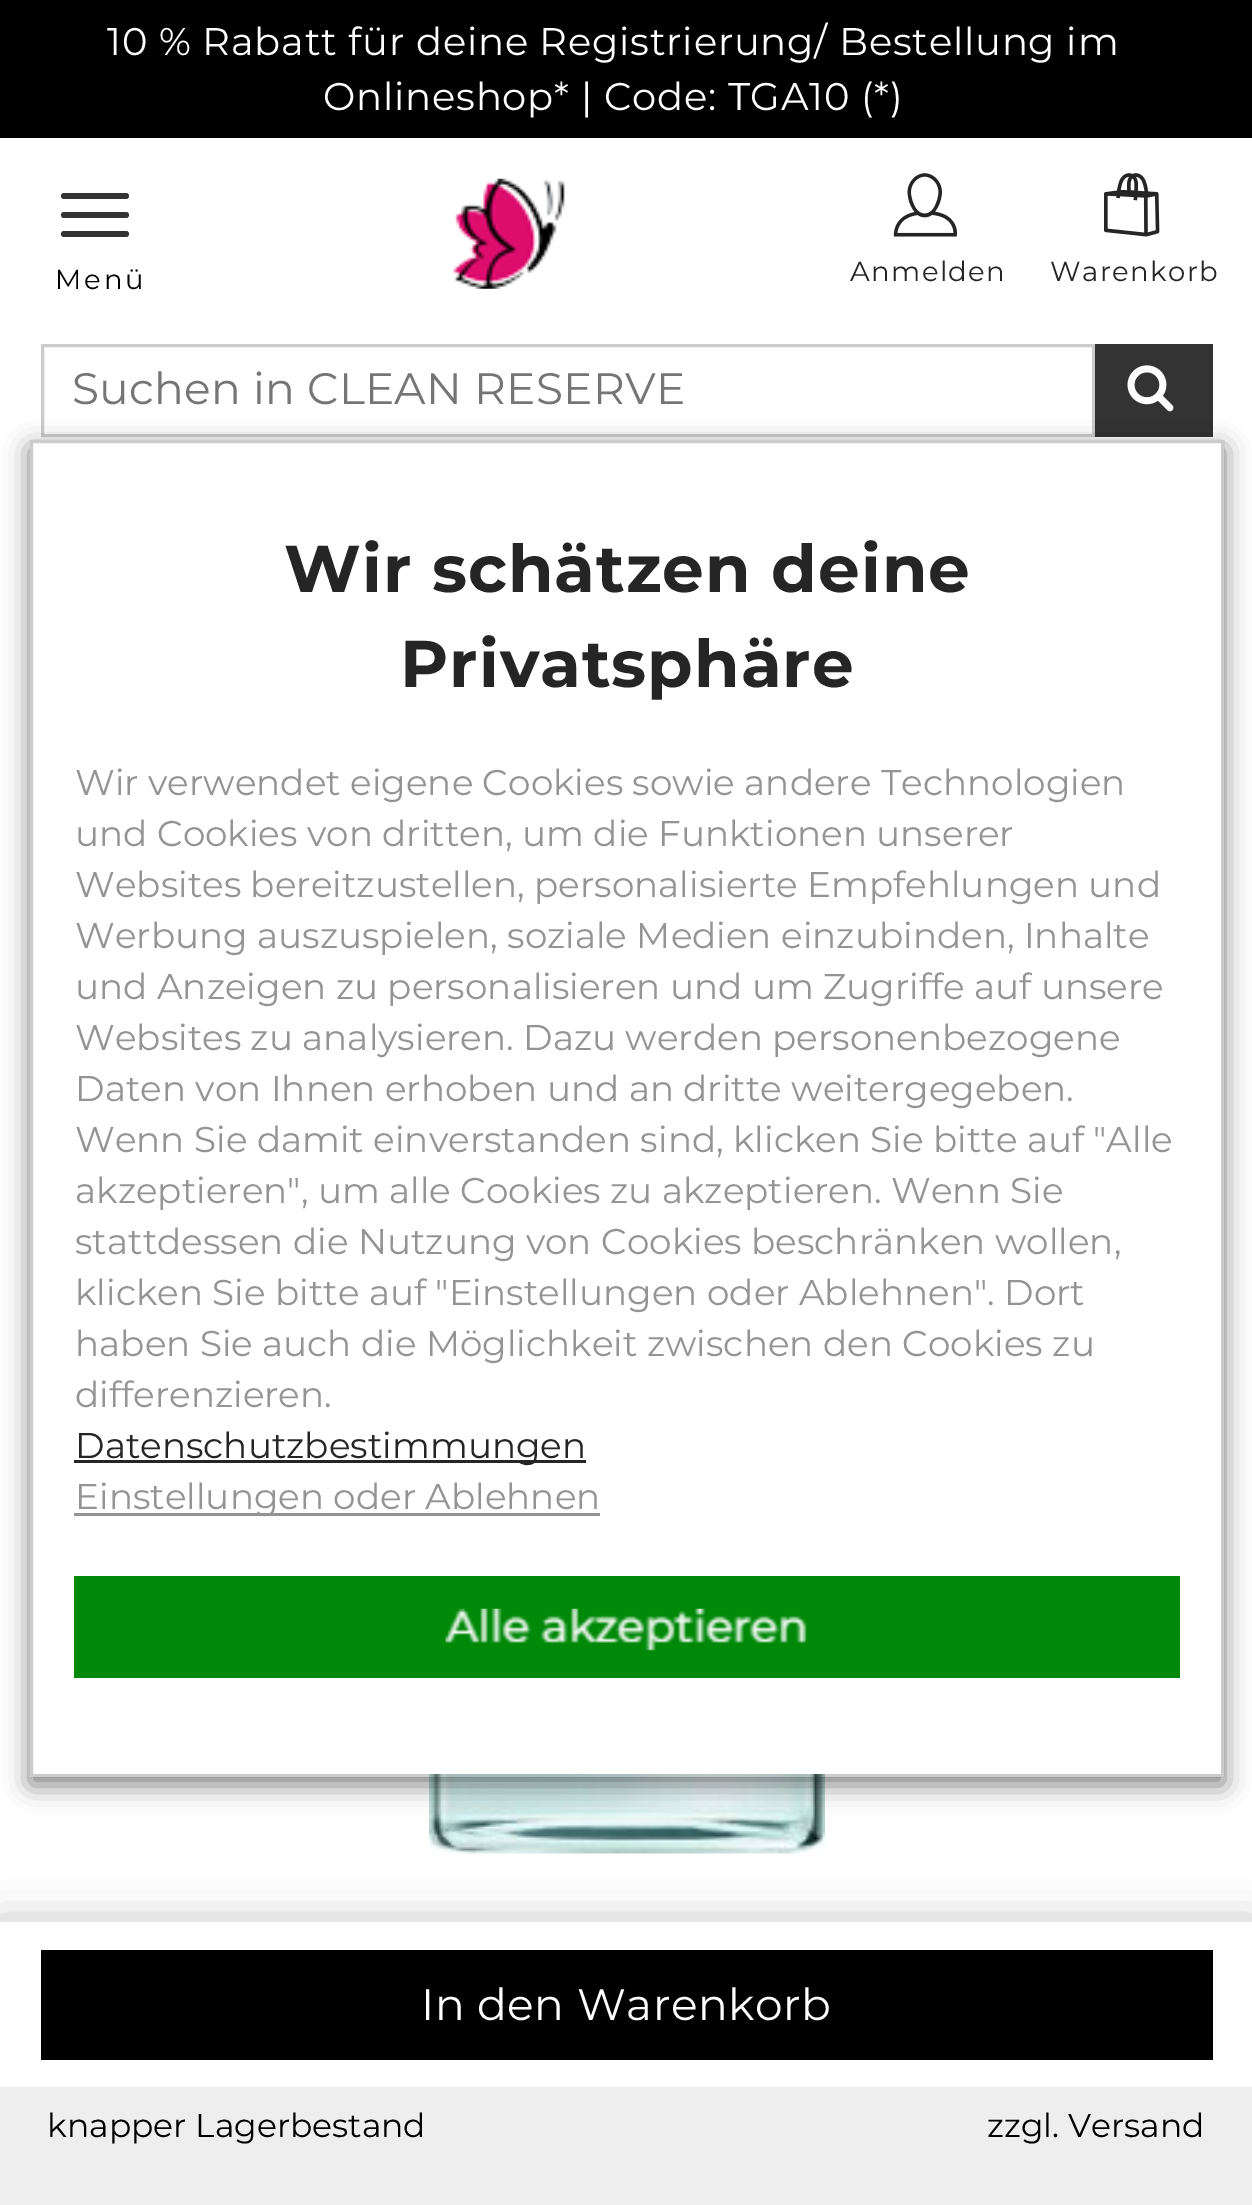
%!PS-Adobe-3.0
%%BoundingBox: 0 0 1252 2205
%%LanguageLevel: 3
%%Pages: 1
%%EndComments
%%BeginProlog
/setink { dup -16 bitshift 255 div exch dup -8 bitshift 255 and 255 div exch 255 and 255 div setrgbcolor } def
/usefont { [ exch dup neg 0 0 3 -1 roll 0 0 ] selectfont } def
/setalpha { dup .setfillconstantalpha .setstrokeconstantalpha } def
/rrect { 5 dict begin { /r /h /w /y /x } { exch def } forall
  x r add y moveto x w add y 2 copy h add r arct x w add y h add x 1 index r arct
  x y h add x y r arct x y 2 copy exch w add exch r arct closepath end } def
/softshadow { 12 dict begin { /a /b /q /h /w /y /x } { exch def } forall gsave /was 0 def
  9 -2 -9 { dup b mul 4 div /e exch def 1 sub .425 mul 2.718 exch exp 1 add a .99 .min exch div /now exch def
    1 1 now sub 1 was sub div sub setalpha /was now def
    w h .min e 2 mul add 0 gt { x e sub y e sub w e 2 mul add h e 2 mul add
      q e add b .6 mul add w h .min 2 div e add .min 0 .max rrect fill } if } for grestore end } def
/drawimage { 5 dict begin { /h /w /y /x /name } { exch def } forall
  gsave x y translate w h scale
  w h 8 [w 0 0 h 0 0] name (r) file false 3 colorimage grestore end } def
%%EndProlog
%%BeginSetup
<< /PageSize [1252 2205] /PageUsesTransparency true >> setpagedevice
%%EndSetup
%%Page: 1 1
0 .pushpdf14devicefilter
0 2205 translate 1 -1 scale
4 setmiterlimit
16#FFFFFF setink
0 0 1252 2205 rectfill
16#000000 setink
0 0 1252 138 rectfill
/Montserrat-Regular 38.5 usefont
16#FFFFFF setink
107 55 moveto 0.77 0 (10 % Rabatt für deine Registrierung/ Bestellung im) ashow
323 110 moveto 0.77 0 (Onlineshop* | Code: TGA10 \(*\)) ashow
16#333333 setink
61 193 68 6 3 rrect fill
61 212 68 6 3 rrect fill
61 231 68 6 3 rrect fill
/Montserrat-Regular 27.5 usefont
16#000000 setink
55 289 moveto 3 0 (Menü) ashow
(img1.raw) 453 178 112 111 drawimage
(img2.raw) 893 173 64 64 drawimage
16#252525 setink
850 281 moveto 1.4 0 (Anmelden) ashow
(img3.raw) 1104 173 56 64 drawimage
1050 281 moveto 1.4 0 (Warenkorb) ashow
16#CCCCCC setink
3 setlinewidth
42.5 345.5 1051 90 rectstroke
/Montserrat-Regular 44 usefont
16#757575 setink
72 404 moveto 0.25 0 (Suchen in CLEAN RESERVE) ashow
16#333333 setink
1095 344 118 93 rectfill
(img4.raw) 1127 365 47 47 drawimage
(img6.raw) 429 1774 396 80 drawimage
gsave
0 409 moveto 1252 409 lineto 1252 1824 lineto 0 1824 lineto closepath 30 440 moveto 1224 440 lineto 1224 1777 lineto 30 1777 lineto closepath eoclip newpath
16#000000 setink
30 448 1194 1337 0 12.5 0.5 softshadow
grestore
0.2 setalpha
16#000000 setink
31.5 441.5 1191 1334 rectstroke
/Montserrat-Bold 66 usefont
1 setalpha
16#252525 setink
284 592 moveto 1 0 (Wir schätzen deine) ashow
400 687 moveto 1 0 (Privatsphäre) ashow
/Montserrat-Regular 35.75 usefont
16#949494 setink
[
    [(Wir verwendet eigene Cookies sowie andere Technologien) 75 795]
    [(und Cookies von dritten, um die Funktionen unserer) 75 846]
    [(Websites bereitzustellen, personalisierte Empfehlungen und) 75 897]
    [(Werbung auszuspielen, soziale Medien einzubinden, Inhalte) 75 948]
    [(und Anzeigen zu personalisieren und um Zugriffe auf unsere) 75 999]
    [(Websites zu analysieren. Dazu werden personenbezogene) 75 1050]
    [(Daten von Ihnen erhoben und an dritte weitergegeben.) 75 1101]
    [(Wenn Sie damit einverstanden sind, klicken Sie bitte auf "Alle) 75 1152]
    [(akzeptieren", um alle Cookies zu akzeptieren. Wenn Sie) 75 1203]
    [(stattdessen die Nutzung von Cookies beschränken wollen,) 75 1254]
    [(klicken Sie bitte auf "Einstellungen oder Ablehnen". Dort) 75 1305]
    [(haben Sie auch die Möglichkeit zwischen den Cookies zu) 75 1356]
    [(differenzieren.) 75 1407]
] { aload pop moveto show } forall
16#252525 setink
74 1460 512 3 rectfill
75 1458 moveto (Datenschutzbestimmungen) show
16#949494 setink
74 1513 526 3 rectfill
75 1509 moveto (Einstellungen oder Ablehnen) show
16#008809 setink
74 1576 1106 102 rectfill
(img5.raw) 445 1608 362 43 drawimage
16#AAAAAA setink
0 1928 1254 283 0 22 1 softshadow
16#FFFFFF setink
0 1922 1252 165 rectfill
16#000000 setink
41 1950 1172 110 rectfill
/Montserrat-Regular 44 usefont
16#FFFFFF setink
421 2020 moveto 0.5 0 (In den Warenkorb) ashow
16#EEEEEE setink
0 2087 1252 118 rectfill
/Montserrat-Regular 33 usefont
16#000000 setink
47 2137 moveto (knapper Lagerbestand) show
987 2137 moveto (zzgl. Versand) show
.poppdf14devicefilter showpage
%%EOF
